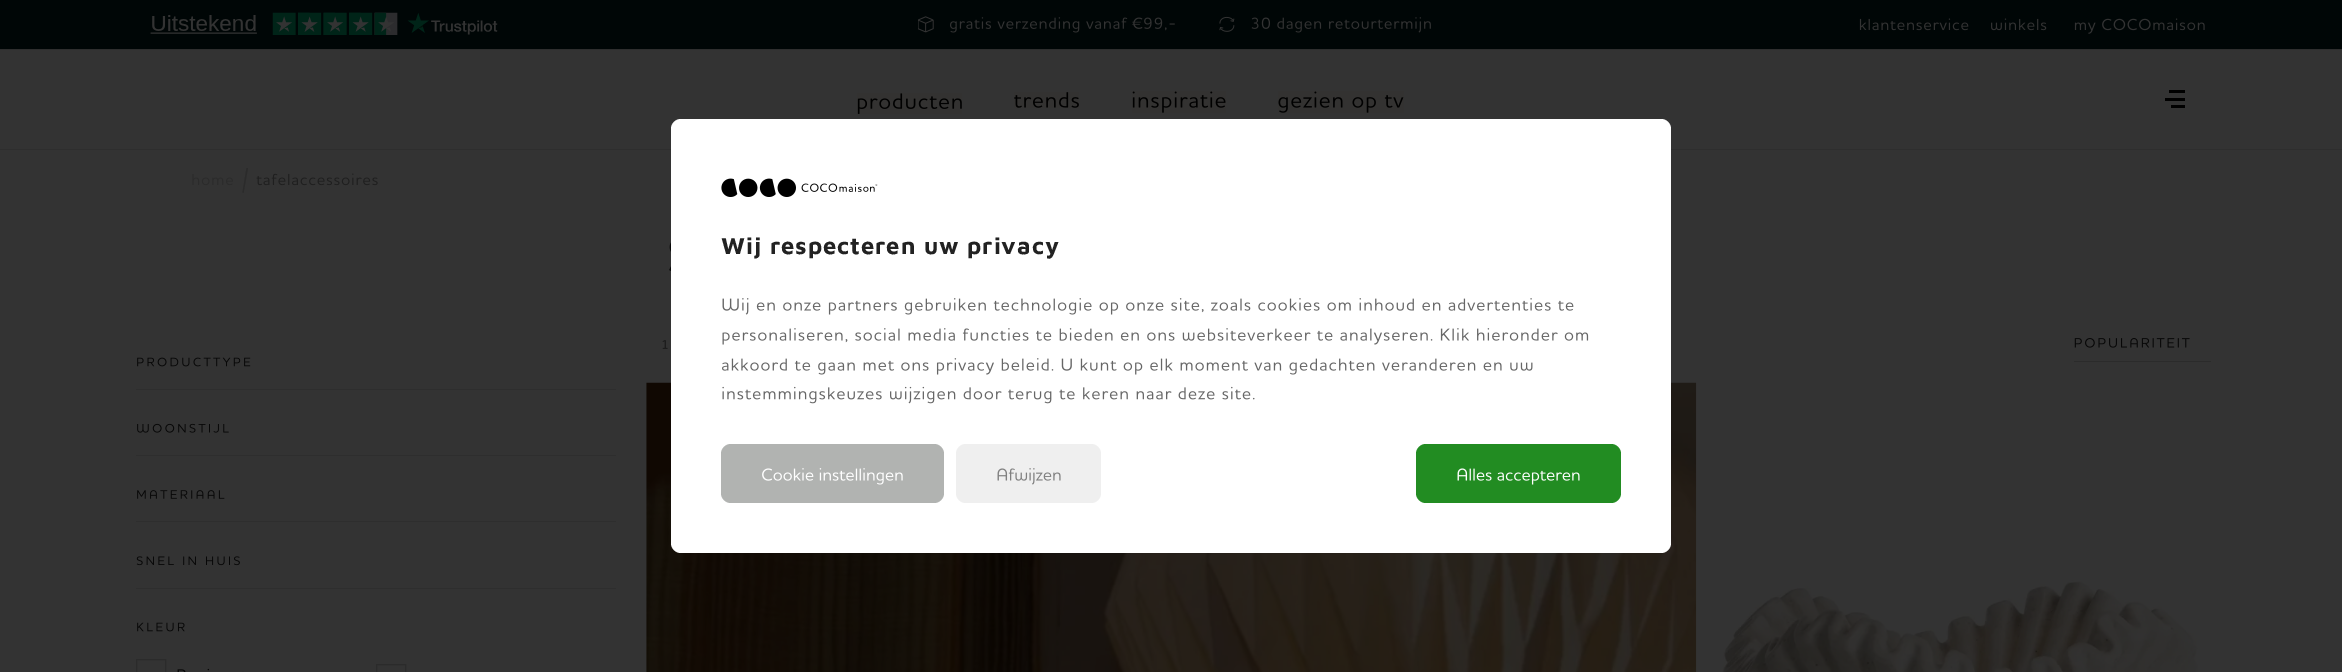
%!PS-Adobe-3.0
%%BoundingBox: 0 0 2342 672
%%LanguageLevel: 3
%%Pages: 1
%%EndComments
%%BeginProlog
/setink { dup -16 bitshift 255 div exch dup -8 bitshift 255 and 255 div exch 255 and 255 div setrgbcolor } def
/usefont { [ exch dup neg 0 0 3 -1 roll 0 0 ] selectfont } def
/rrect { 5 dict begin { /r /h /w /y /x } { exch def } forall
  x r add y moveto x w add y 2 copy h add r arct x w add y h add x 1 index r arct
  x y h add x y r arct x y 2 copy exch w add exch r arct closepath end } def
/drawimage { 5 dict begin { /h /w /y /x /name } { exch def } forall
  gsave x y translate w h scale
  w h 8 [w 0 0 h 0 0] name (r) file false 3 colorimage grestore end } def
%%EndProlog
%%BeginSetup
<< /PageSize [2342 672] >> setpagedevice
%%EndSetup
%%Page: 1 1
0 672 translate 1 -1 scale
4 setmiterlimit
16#333333 setink
0 0 2342 672 rectfill
16#000606 setink
0 0 2342 49 rectfill
16#2E2E2E setink
0 49 2342 1 rectfill
(img1.raw) 150 12 348 23 drawimage
(img2.raw) 918 16 16 17 drawimage
(img3.raw) 950 17 225 16 drawimage
(img4.raw) 1219 16 16 16 drawimage
(img5.raw) 1251 17 180 16 drawimage
(img6.raw) 1859 18 110 13 drawimage
(img7.raw) 1991 18 56 13 drawimage
(img8.raw) 2074 18 131 16 drawimage
0 149 2342 1 rectfill
(img9.raw) 857 93 105 21 drawimage
(img10.raw) 1014 92 65 16 drawimage
(img11.raw) 1132 91 94 22 drawimage
(img12.raw) 1278 91 126 22 drawimage
[
    [2169 90 16 3 16#000000]
    [2165 98 20 3 16#000000]
    [2171 105 14 3 16#000000]
] { aload pop setink rectfill } forall
(img13.raw) 192 174 41 12 drawimage
16#2B2B2B setink
246.5 168 moveto 248 168 lineto 243.5 193 lineto 242.5 192.5 lineto closepath fill
(img14.raw) 256 173 122 13 drawimage
(img15.raw) 669 242 2 29 drawimage
(img16.raw) 137 357 114 10 drawimage
16#2E2E2E setink
136 389 480 1 rectfill
(img17.raw) 137 423 92 10 drawimage
136 455 480 1 rectfill
(img18.raw) 137 490 88 9 drawimage
136 521 480 1 rectfill
(img19.raw) 136 556 104 10 drawimage
136 588 480 1 rectfill
(img20.raw) 137 622 48 10 drawimage
16#2B2B2B setink
136.5 659.5 29 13 rectstroke
(img21.raw) 177 668 33 4 drawimage
(img22.raw) 242 671 2 1 drawimage
376.5 664.5 29 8 rectstroke
(img23.raw) 662 340 6 9 drawimage
2074 361 137 1 rectfill
(img24.raw) 2074 338 116 10 drawimage
(img25.raw) 646 382 1051 290 drawimage
(img26.raw) 1722 580 476 92 drawimage
16#FFFFFF setink
671 119 1000 434 10 rrect fill
(img27.raw) 721 178 157 19 drawimage
/MavenPro-Bold 23.75 usefont
16#222222 setink
721 254 moveto 1 0 (Wij respecteren uw privacy) ashow
(img28.raw) 722 298 852 17 drawimage
(img29.raw) 722 328 867 17 drawimage
(img30.raw) 722 358 811 17 drawimage
(img31.raw) 722 386 533 18 drawimage
16#B1B3B1 setink
721 444 223 59 10 rrect fill
(img32.raw) 762 468 141 17 drawimage
16#EFEFEF setink
956 444 145 59 10 rrect fill
(img33.raw) 997 468 64 17 drawimage
16#228C22 setink
1416 444 205 59 10 rrect fill
(img34.raw) 1457 468 123 17 drawimage
showpage
%%EOF
